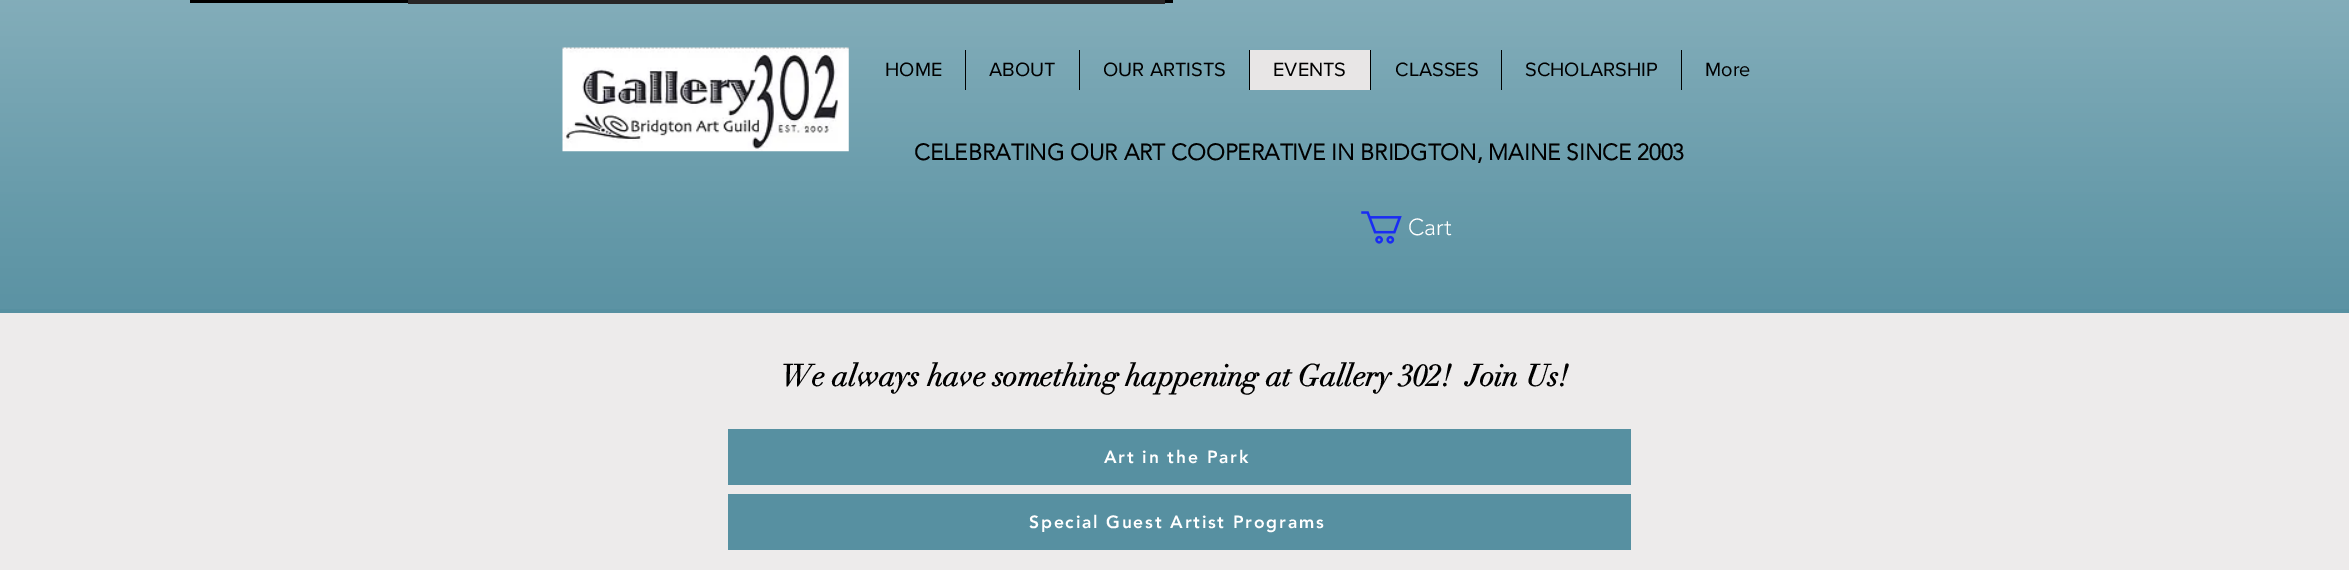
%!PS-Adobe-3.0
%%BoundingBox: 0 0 2349 570
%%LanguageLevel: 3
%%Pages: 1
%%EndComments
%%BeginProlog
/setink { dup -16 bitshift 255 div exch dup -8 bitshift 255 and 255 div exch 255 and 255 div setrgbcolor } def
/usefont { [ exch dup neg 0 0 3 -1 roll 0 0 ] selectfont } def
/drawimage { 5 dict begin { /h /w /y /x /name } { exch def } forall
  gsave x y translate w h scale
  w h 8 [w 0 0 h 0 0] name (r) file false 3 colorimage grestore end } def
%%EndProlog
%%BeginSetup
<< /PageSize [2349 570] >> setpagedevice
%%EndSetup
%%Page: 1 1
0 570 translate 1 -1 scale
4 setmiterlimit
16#EDEBEB setink
0 0 2349 570 rectfill
16#5790A1 setink
0 0 2349 313 rectfill
(img1.raw) 0 0 2349 309 drawimage
16#000000 setink
190 0 983 3 rectfill
16#282626 setink
408 0 757 4 rectfill
(img2.raw) 562 47 287 105 drawimage
/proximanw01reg-Regular 20 usefont
16#000000 setink
885 76 moveto (HOME) show
965 50 1 40 rectfill
989 76 moveto (ABOUT) show
1079 50 1 40 rectfill
1103 76 moveto (OUR ARTISTS) show
16#E8E6E6 setink
1250 50 120 40 rectfill
16#000000 setink
1249 50 1 40 rectfill
1273 76 moveto (EVENTS) show
1370 50 1 40 rectfill
1395 76 moveto (CLASSES) show
1501 50 1 40 rectfill
1525 76 moveto (SCHOLARSHIP) show
1681 50 1 40 rectfill
1705 76 moveto (More) show
/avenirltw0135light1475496-Bold 22.5 usefont
914 160 moveto (CELEBRATING OUR ART COOPERATIVE IN BRIDGTON, MAINE SINCE 2003) show
(img3.raw) 1361 211 41 33 drawimage
/avenirltw0135light1475496-Light 23 usefont
16#FFFFFF setink
1408 235 moveto (Cart) show
/didot-Bold 30 usefont
16#000000 setink
781 386 moveto (We always have something happening at Gallery 302!  Join Us!) show
16#5790A1 setink
728 429 903 56 rectfill
/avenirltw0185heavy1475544-Black 17.5 usefont
16#FFFFFF setink
1104 463 moveto 1.75 0 (Art in the Park) ashow
16#5790A1 setink
728 494 903 56 rectfill
16#FFFFFF setink
1029 528 moveto 1.75 0 (Special Guest Artist Programs) ashow
showpage
%%EOF
